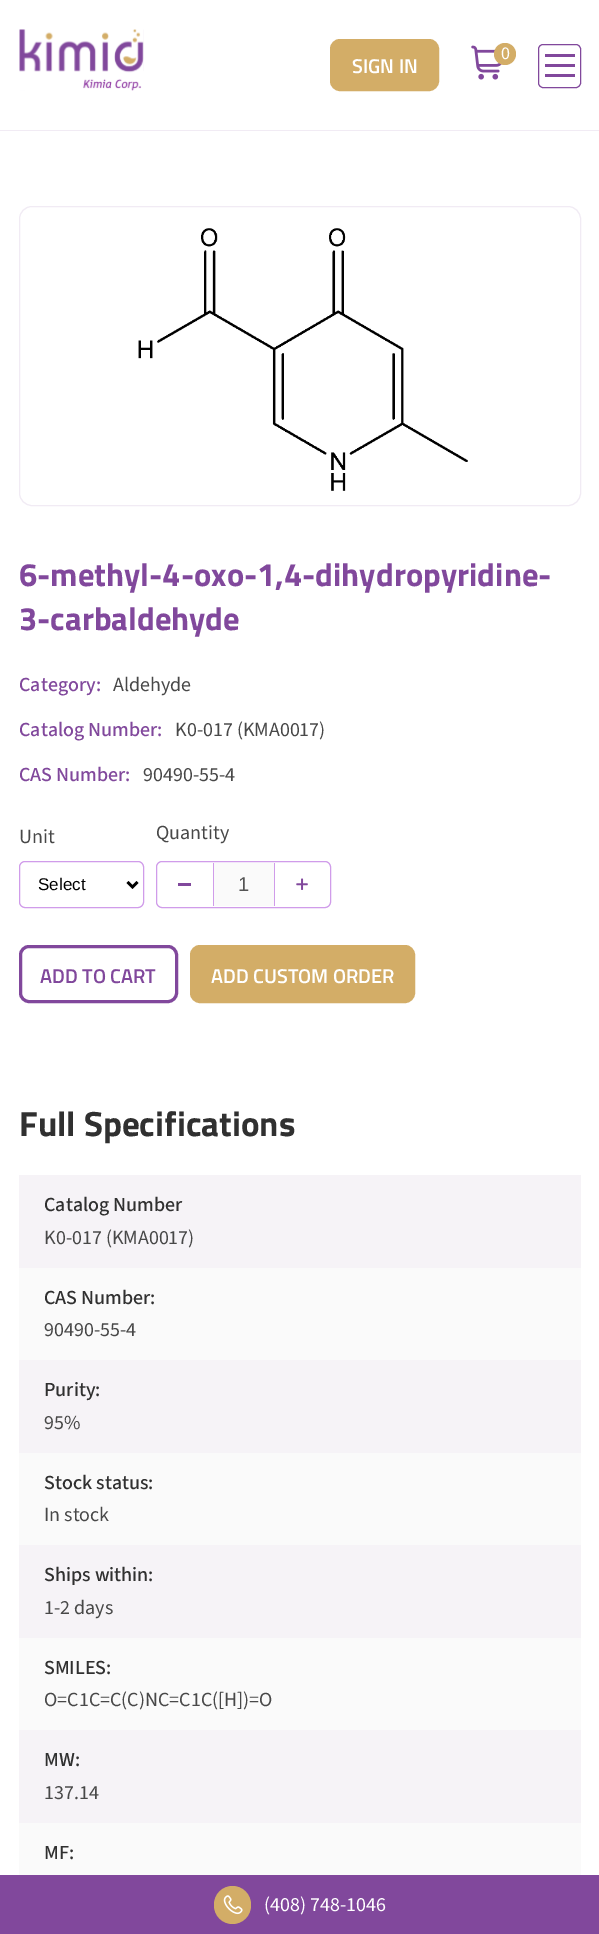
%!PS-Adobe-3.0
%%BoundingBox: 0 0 599 1934
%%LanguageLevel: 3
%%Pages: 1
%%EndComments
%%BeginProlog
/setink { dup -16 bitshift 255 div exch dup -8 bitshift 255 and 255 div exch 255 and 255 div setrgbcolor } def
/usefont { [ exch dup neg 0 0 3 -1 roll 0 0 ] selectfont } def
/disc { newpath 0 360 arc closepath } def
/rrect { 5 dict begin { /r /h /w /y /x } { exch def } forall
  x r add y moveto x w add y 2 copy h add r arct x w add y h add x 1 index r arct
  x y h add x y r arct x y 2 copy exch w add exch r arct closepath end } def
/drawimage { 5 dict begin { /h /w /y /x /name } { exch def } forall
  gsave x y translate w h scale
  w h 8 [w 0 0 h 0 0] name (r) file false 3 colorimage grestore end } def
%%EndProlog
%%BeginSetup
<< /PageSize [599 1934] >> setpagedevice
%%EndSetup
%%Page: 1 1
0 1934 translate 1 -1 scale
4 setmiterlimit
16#FFFFFF setink
0 0 599 1934 rectfill
(img1.raw) 19 29 125 62 drawimage
(img2.raw) 471 45 31 35 drawimage
16#D3AD67 setink
505 54 11 disc fill
/SourceSans3-Regular 18 usefont
16#FFFFFF setink
501 59 moveto (0) show
16#D3AD67 setink
331.5 40.5 106 49 8.5 rrect gsave fill grestore
3 setlinewidth
stroke
/Sunflower-Medium 20 usefont
16#FFFFFF setink
352 73 moveto (SIGN IN) show
16#81489C setink
0 1875 599 59 rectfill
16#D3AD67 setink
214 1886 37 38 18.5 rrect fill
(img3.raw) 223 1895 20 20 drawimage
/SourceSans3-Regular 20 usefont
16#FFFFFF setink
264 1911 moveto (\(408\) 748-1046) show
16#81489C setink
1 setlinewidth
538.5 44.5 42 43 4.5 rrect stroke
[
    [545 54 30 3 16#81489C]
    [545 64 30 3 16#81489C]
    [545 74 30 3 16#81489C]
    [0 130 599 1 16#F1EBF4]
] { aload pop setink rectfill } forall
19.5 206.5 561 299 12.5 rrect stroke
(img4.raw) 138 228 330 263 drawimage
/Sunflower-Bold 32.5 usefont
16#81489C setink
19 586 moveto (6-methyl-4-oxo-1,4-dihydropyridine-) show
19 630 moveto (3-carbaldehyde) show
/SourceSans3-Medium 20 usefont
19 691 moveto (Category:) show
/SourceSans3-Regular 20 usefont
16#484848 setink
113 691 moveto (Aldehyde) show
/SourceSans3-Medium 20 usefont
16#81489C setink
19 736 moveto (Catalog Number:) show
/SourceSans3-Regular 20 usefont
16#484848 setink
175 736 moveto (K0-017 \(KMA0017\)) show
/SourceSans3-Medium 20 usefont
16#81489C setink
19 781 moveto (CAS Number:) show
/SourceSans3-Regular 20 usefont
16#484848 setink
143 781 moveto (90490-55-4) show
19 843 moveto (Unit) show
16#D09CEA setink
19.5 861.5 124 46 5.5 rrect stroke
16#000000 setink
2.5 setlinewidth
127.5 882 moveto 132.5 887 lineto 137.5 882 lineto stroke
/LiberationSans-Regular 17 usefont
38 890 moveto (Select) show
/SourceSans3-Regular 20 usefont
16#484848 setink
156 839 moveto (Quantity) show
16#D09CEA setink
1 setlinewidth
156.5 861.5 174 46 5.5 rrect stroke
[
    [178 883 13 3 16#81489C]
    [214 863 60 43 16#FAFAFA]
    [274 863 1 43 16#D09CEA]
    [213 863 1 43 16#D09CEA]
] { aload pop setink rectfill } forall
/LiberationSans-Regular 20 usefont
16#545454 setink
238 891 moveto (1) show
(img5.raw) 296 878 12 12 drawimage
16#81489C setink
3 setlinewidth
20.5 946.5 156 55 8.5 rrect stroke
/Sunflower-Medium 20 usefont
40 983 moveto (ADD TO CART) show
16#D3AD67 setink
191.5 946.5 222 55 8.5 rrect gsave fill grestore
stroke
16#FFFFFF setink
211 983 moveto (ADD CUSTOM ORDER) show
/Sunflower-Bold 35 usefont
16#303030 setink
19 1136 moveto (Full Specifications) show
16#FAFAFA setink
19 1268 562 607 rectfill
16#F6F3F7 setink
19 1175 562 93 rectfill
/SourceSans3-Medium 20 usefont
16#303030 setink
44 1211 moveto (Catalog Number) show
/SourceSans3-Regular 20 usefont
16#484848 setink
44 1244 moveto (K0-017 \(KMA0017\)) show
/SourceSans3-Medium 20 usefont
16#303030 setink
44 1304 moveto (CAS Number:) show
/SourceSans3-Regular 20 usefont
16#484848 setink
44 1336 moveto (90490-55-4) show
16#F6F3F7 setink
19 1360 562 93 rectfill
/SourceSans3-Medium 20 usefont
16#303030 setink
44 1396 moveto (Purity:) show
/SourceSans3-Regular 20 usefont
16#484848 setink
44 1429 moveto (95%) show
/SourceSans3-Medium 20 usefont
16#303030 setink
44 1489 moveto (Stock status:) show
/SourceSans3-Regular 20 usefont
16#484848 setink
44 1521 moveto (In stock) show
16#F6F3F7 setink
19 1545 562 93 rectfill
/SourceSans3-Medium 20 usefont
16#303030 setink
44 1581 moveto (Ships within:) show
/SourceSans3-Regular 20 usefont
16#484848 setink
44 1614 moveto (1-2 days) show
/SourceSans3-Medium 20 usefont
16#303030 setink
44 1674 moveto (SMILES:) show
/SourceSans3-Regular 20 usefont
16#484848 setink
44 1706 moveto (O=C1C=C\(C\)NC=C1C\([H]\)=O) show
16#F6F3F7 setink
19 1730 562 93 rectfill
/SourceSans3-Medium 20 usefont
16#303030 setink
44 1766 moveto (MW:) show
/SourceSans3-Regular 20 usefont
16#484848 setink
44 1799 moveto (137.14) show
/SourceSans3-Medium 20 usefont
16#303030 setink
44 1859 moveto (MF:) show
showpage
%%EOF
